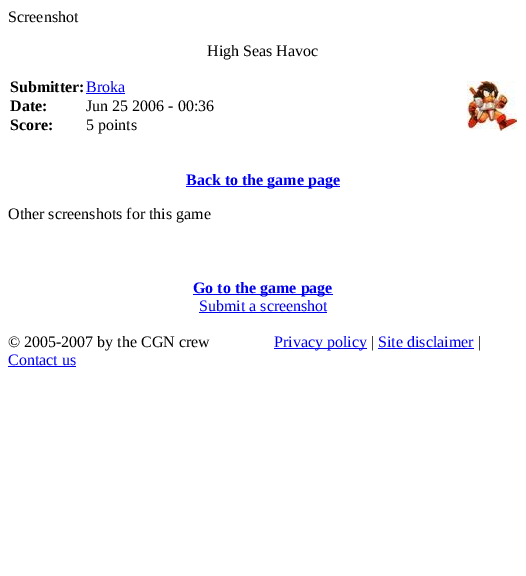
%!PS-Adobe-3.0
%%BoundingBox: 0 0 526 576
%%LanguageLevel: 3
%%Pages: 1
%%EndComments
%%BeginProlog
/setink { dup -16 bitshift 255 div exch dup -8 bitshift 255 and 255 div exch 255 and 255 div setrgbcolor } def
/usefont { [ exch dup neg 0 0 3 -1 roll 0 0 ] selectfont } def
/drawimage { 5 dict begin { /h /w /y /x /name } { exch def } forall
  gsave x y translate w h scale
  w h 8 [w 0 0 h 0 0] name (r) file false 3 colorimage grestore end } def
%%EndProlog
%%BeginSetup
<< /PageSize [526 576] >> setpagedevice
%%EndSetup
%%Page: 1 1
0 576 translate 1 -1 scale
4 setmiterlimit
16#FFFFFF setink
0 0 526 576 rectfill
/LiberationSerif-Regular 16 usefont
16#000000 setink
8 22 moveto (Screenshot) show
207 56 moveto (High Seas Havoc) show
/LiberationSerif-Bold 16 usefont
10 92 moveto (Submitter:) show
/LiberationSerif-Regular 16 usefont
16#0000EE setink
86 92 moveto (Broka) show
86 93 39 1 rectfill
/LiberationSerif-Bold 16 usefont
16#000000 setink
10 111 moveto (Date:) show
/LiberationSerif-Regular 16 usefont
86 111 moveto (Jun 25 2006 - 00:36) show
/LiberationSerif-Bold 16 usefont
10 130 moveto (Score:) show
/LiberationSerif-Regular 16 usefont
86 130 moveto (5 points) show
(img1.raw) 467 81 50 50 drawimage
16#0000EE setink
186 186 154 1 rectfill
/LiberationSerif-Bold 16 usefont
186 185 moveto (Back to the game page) show
/LiberationSerif-Regular 16 usefont
16#000000 setink
8 219 moveto (Other screenshots for this game) show
16#0000EE setink
193 294 140 1 rectfill
/LiberationSerif-Bold 16 usefont
193 293 moveto (Go to the game page) show
/LiberationSerif-Regular 16 usefont
199 311 moveto (Submit a screenshot) show
199 312 128 1 rectfill
16#000000 setink
8 347 moveto (© 2005-2007 by the CGN crew) show
16#0000EE setink
274 348 93 1 rectfill
274 347 moveto (Privacy policy) show
16#000000 setink
371 347 moveto (|) show
16#0000EE setink
378 347 moveto (Site disclaimer) show
378 348 96 1 rectfill
16#000000 setink
478 347 moveto (|) show
16#0000EE setink
8 365 moveto (Contact us) show
8 366 68 1 rectfill
showpage
%%EOF
